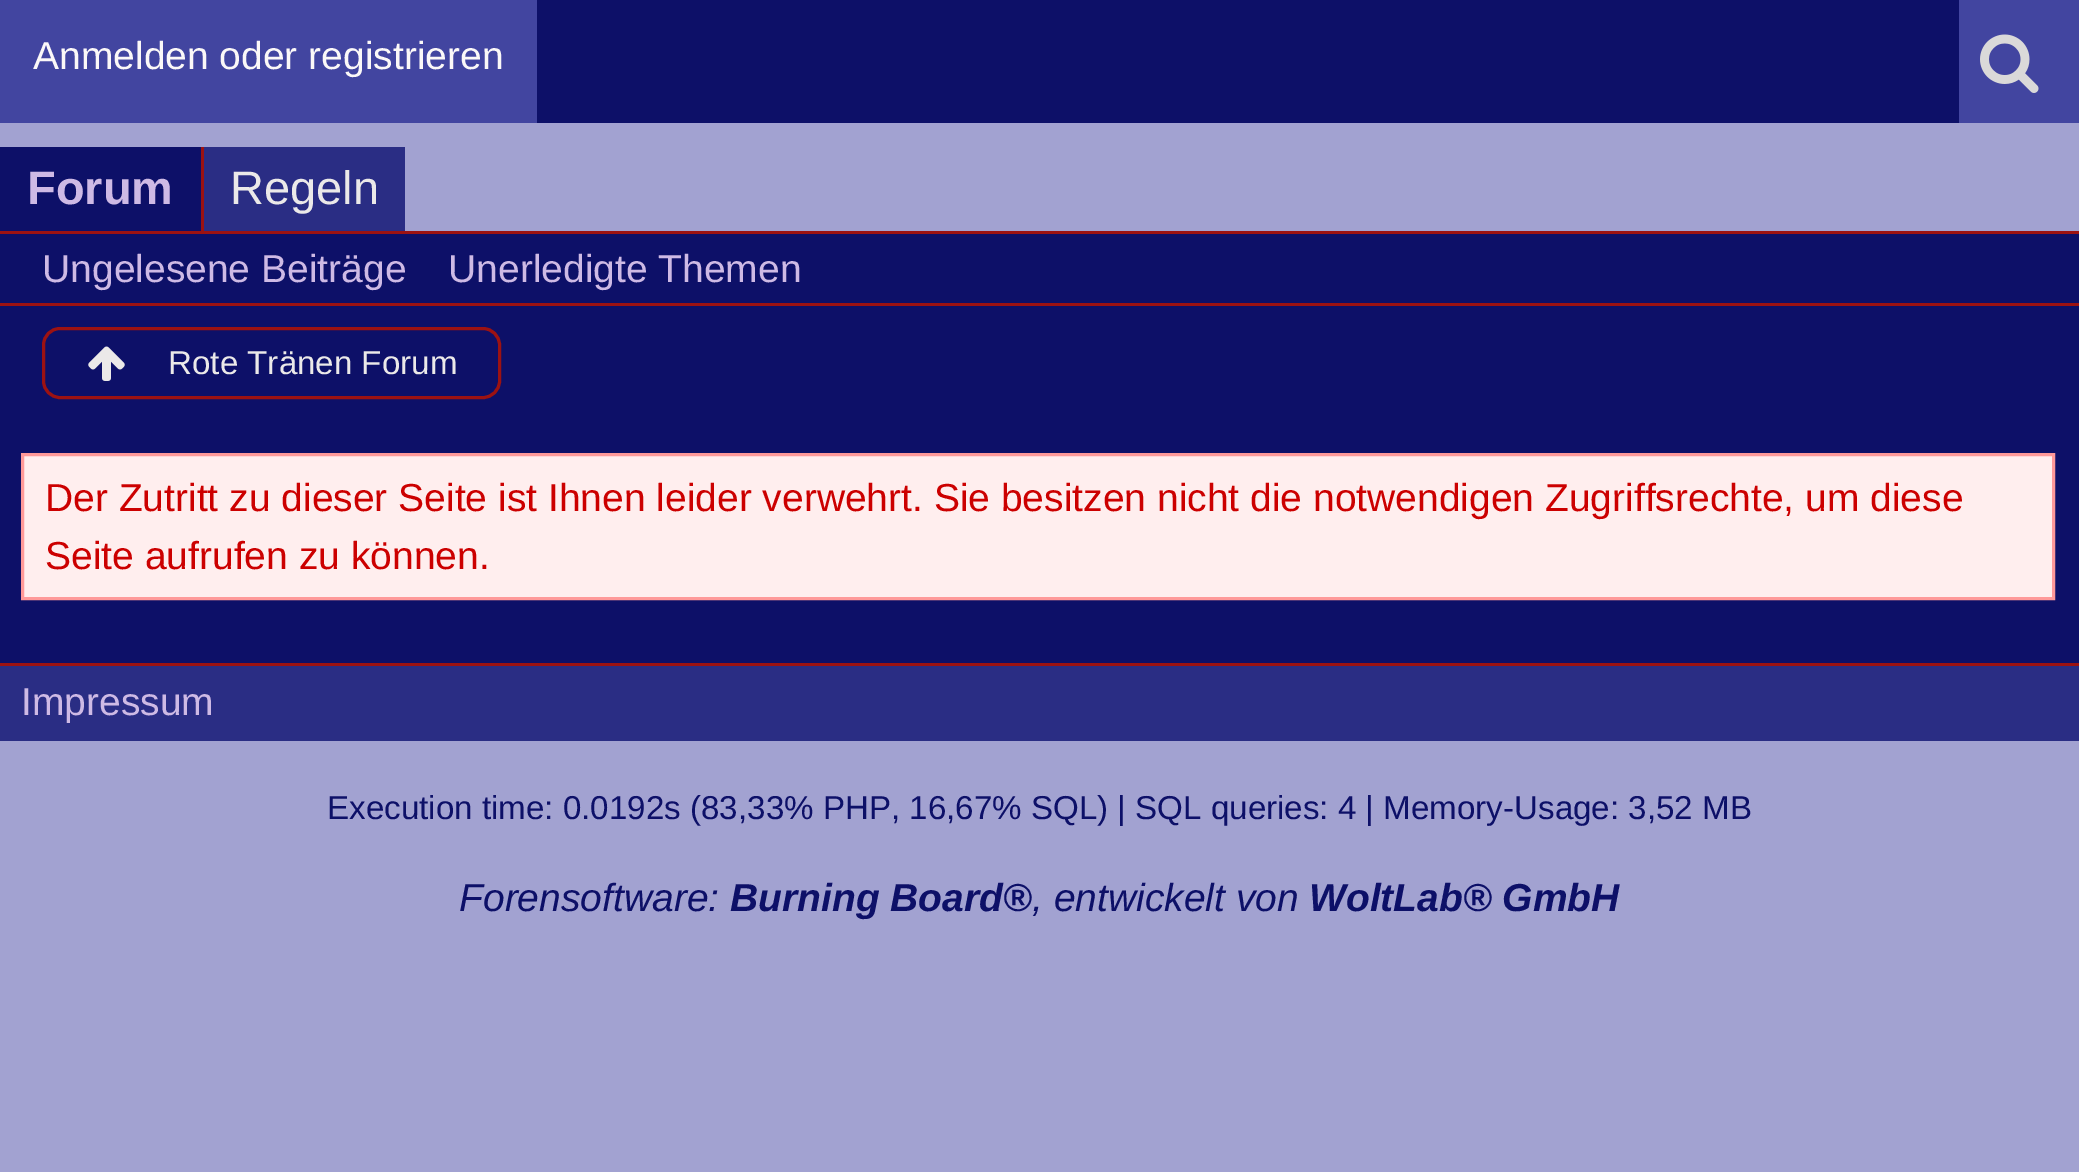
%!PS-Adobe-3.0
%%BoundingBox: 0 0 2079 1172
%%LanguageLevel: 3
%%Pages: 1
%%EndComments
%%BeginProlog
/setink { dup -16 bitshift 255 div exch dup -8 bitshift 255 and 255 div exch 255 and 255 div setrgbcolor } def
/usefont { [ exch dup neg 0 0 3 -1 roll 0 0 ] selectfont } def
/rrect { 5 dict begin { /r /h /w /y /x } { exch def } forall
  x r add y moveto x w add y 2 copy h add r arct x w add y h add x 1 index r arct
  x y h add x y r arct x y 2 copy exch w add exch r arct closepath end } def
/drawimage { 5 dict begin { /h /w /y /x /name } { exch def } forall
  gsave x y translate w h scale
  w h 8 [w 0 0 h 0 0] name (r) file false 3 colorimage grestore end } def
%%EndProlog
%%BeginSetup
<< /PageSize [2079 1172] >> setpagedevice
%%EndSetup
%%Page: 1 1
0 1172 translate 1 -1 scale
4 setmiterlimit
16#A2A2D1 setink
0 0 2079 1172 rectfill
16#0D1068 setink
537 0 1422 123 rectfill
16#4245A0 setink
0 0 537 123 rectfill
/LiberationSans-Regular 39 usefont
16#FBF8F8 setink
33 69 moveto (Anmelden oder registrieren) show
16#4245A0 setink
1959 0 120 123 rectfill
(img1.raw) 1980 34 59 59 drawimage
[
    [204 147 201 84 16#2A2D84]
    [0 147 201 84 16#0D1068]
    [201 147 3 87 16#9C1212]
] { aload pop setink rectfill } forall
/LiberationSans-Bold 47 usefont
16#CEBAE5 setink
27 204 moveto (Forum) show
/LiberationSans-Regular 47 usefont
16#EBE9E9 setink
230 204 moveto (Regeln) show
[
    [0 234 2079 69 16#0D1068]
    [0 231 2079 3 16#9C1212]
    [0 303 2079 3 16#9C1212]
] { aload pop setink rectfill } forall
/LiberationSans-Regular 39 usefont
16#CEBAE5 setink
42 282 moveto (Ungelesene Beiträge) show
448 282 moveto (Unerledigte Themen) show
16#0D1068 setink
0 306 2079 357 rectfill
16#9C1212 setink
3 setlinewidth
43.5 328.5 456 69 16.5 rrect stroke
(img2.raw) 88 346 37 35 drawimage
/LiberationSans-Regular 33.15 usefont
16#EBE9E9 setink
168 374 moveto (Rote Tränen Forum) show
16#FFEEEE setink
22.5 454.5 moveto 2053.5 454.5 lineto 2053.5 598.5 lineto 22.5 598.5 lineto closepath gsave fill grestore
16#FF9999 setink
stroke
/LiberationSans-Regular 39 usefont
16#CC0000 setink
45 511 moveto (Der Zutritt zu dieser Seite ist Ihnen leider verwehrt. Sie besitzen nicht die notwendigen Zugriffsrechte, um diese) show
45 569 moveto (Seite aufrufen zu können.) show
16#2A2D84 setink
0 666 2079 75 rectfill
16#9C1212 setink
0 663 2079 3 rectfill
16#CEBAE5 setink
21 715 moveto (Impressum) show
/LiberationSans-Regular 33.15 usefont
16#0D1068 setink
327 819 moveto (Execution time: 0.0192s \(83,33% PHP, 16,67% SQL\) | SQL queries: 4 | Memory-Usage: 3,52 MB) show
/LiberationSans-Italic 39 usefont
459 911 moveto (Forensoftware:) show
/LiberationSans-BoldItalic 39 usefont
730 911 moveto (Burning Board®) show
/LiberationSans-Italic 39 usefont
1032 911 moveto (, entwickelt von) show
/LiberationSans-BoldItalic 39 usefont
1309 911 moveto (WoltLab® GmbH) show
showpage
%%EOF
